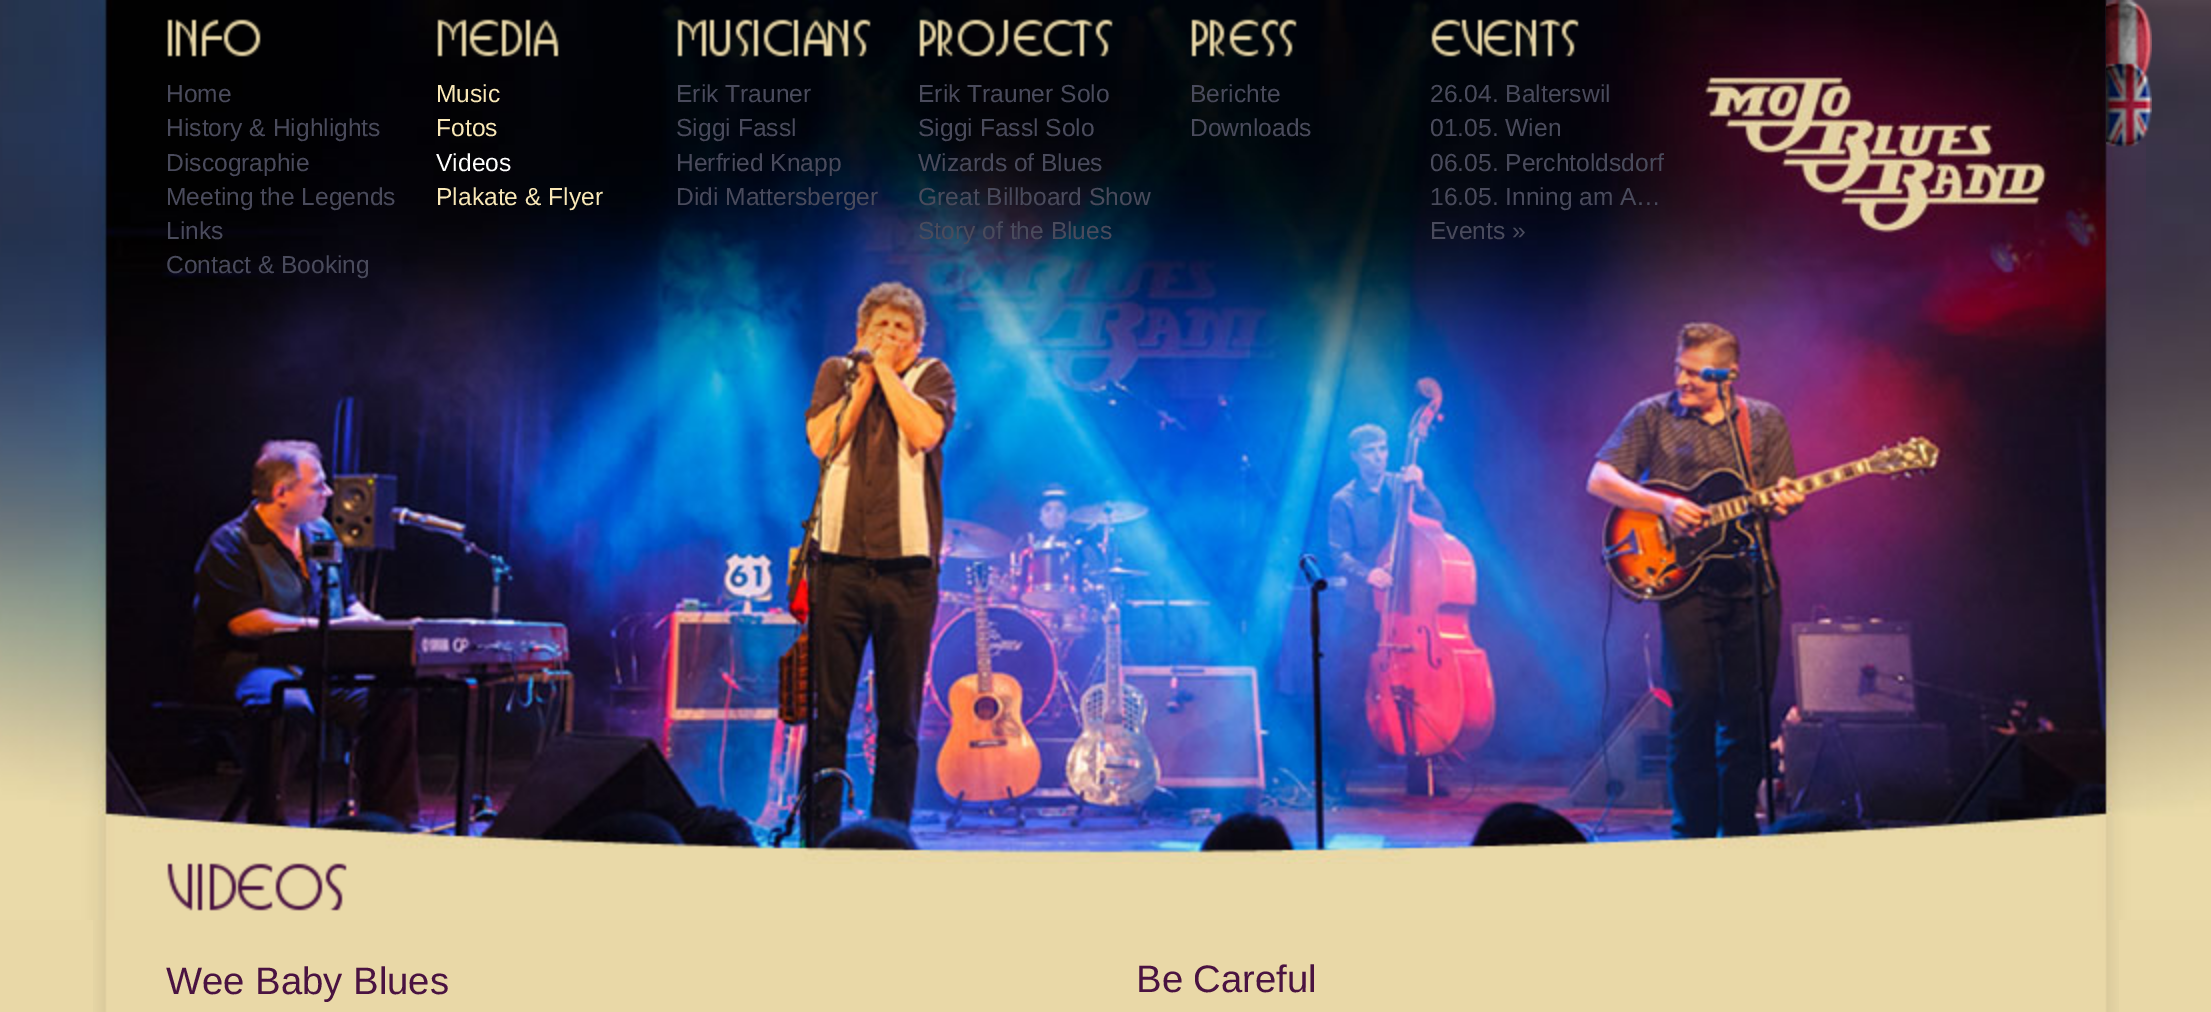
%!PS-Adobe-3.0
%%BoundingBox: 0 0 2211 1012
%%LanguageLevel: 3
%%Pages: 1
%%EndComments
%%BeginProlog
/setink { dup -16 bitshift 255 div exch dup -8 bitshift 255 and 255 div exch 255 and 255 div setrgbcolor } def
/usefont { [ exch dup neg 0 0 3 -1 roll 0 0 ] selectfont } def
/drawimage { 5 dict begin { /h /w /y /x /name } { exch def } forall
  gsave x y translate w h scale
  w h 8 [w 0 0 h 0 0] name (r) file false 3 colorimage grestore end } def
%%EndProlog
%%BeginSetup
<< /PageSize [2211 1012] >> setpagedevice
%%EndSetup
%%Page: 1 1
0 1012 translate 1 -1 scale
4 setmiterlimit
16#E9D8A7 setink
0 0 2211 1012 rectfill
(img1.raw) 0 0 2211 920 drawimage
(img2.raw) 98 0 2048 864 drawimage
(img3.raw) 167 19 94 38 drawimage
/LiberationSans-Regular 24.6 usefont
16#4A4B5C setink
[
    [(Home) 166 102]
    [(History & Highlights) 166 136]
    [(Discographie) 166 171]
    [(Meeting the Legends) 166 205]
    [(Links) 166 239]
    [(Contact & Booking) 166 273]
] { aload pop moveto show } forall
(img4.raw) 437 19 123 38 drawimage
16#F9E8B7 setink
436 102 moveto (Music) show
436 136 moveto (Fotos) show
16#FFFFFF setink
436 171 moveto (Videos) show
16#F9E8B7 setink
436 205 moveto (Plakate & Flyer) show
(img5.raw) 677 19 194 38 drawimage
16#4A4B5C setink
[
    [(Erik Trauner) 676 102]
    [(Siggi Fassl) 676 136]
    [(Herfried Knapp) 676 171]
    [(Didi Mattersberger) 676 205]
] { aload pop moveto show } forall
(img6.raw) 919 19 194 38 drawimage
[
    [(Erik Trauner Solo) 918 102]
    [(Siggi Fassl Solo) 918 136]
    [(Wizards of Blues) 918 171]
    [(Great Billboard Show) 918 205]
    [(Story of the Blues) 918 239]
] { aload pop moveto show } forall
(img7.raw) 1191 19 106 38 drawimage
1190 102 moveto (Berichte) show
1190 136 moveto (Downloads) show
(img8.raw) 1431 19 148 38 drawimage
[
    [(26.04. Balterswil) 1430 102]
    [(01.05. Wien) 1430 136]
    [(06.05. Perchtoldsdorf) 1430 171]
    [(16.05. Inning am A…) 1430 205]
    [(Events ») 1430 239]
] { aload pop moveto show } forall
(img9.raw) 2106 0 46 79 drawimage
(img10.raw) 2106 63 46 84 drawimage
(img11.raw) 93 920 2026 92 drawimage
(img12.raw) 167 863 180 48 drawimage
/LiberationSans-Regular 38.25 usefont
16#4A1341 setink
166 994 moveto (Wee Baby Blues) show
1136 992 moveto (Be Careful) show
showpage
%%EOF
